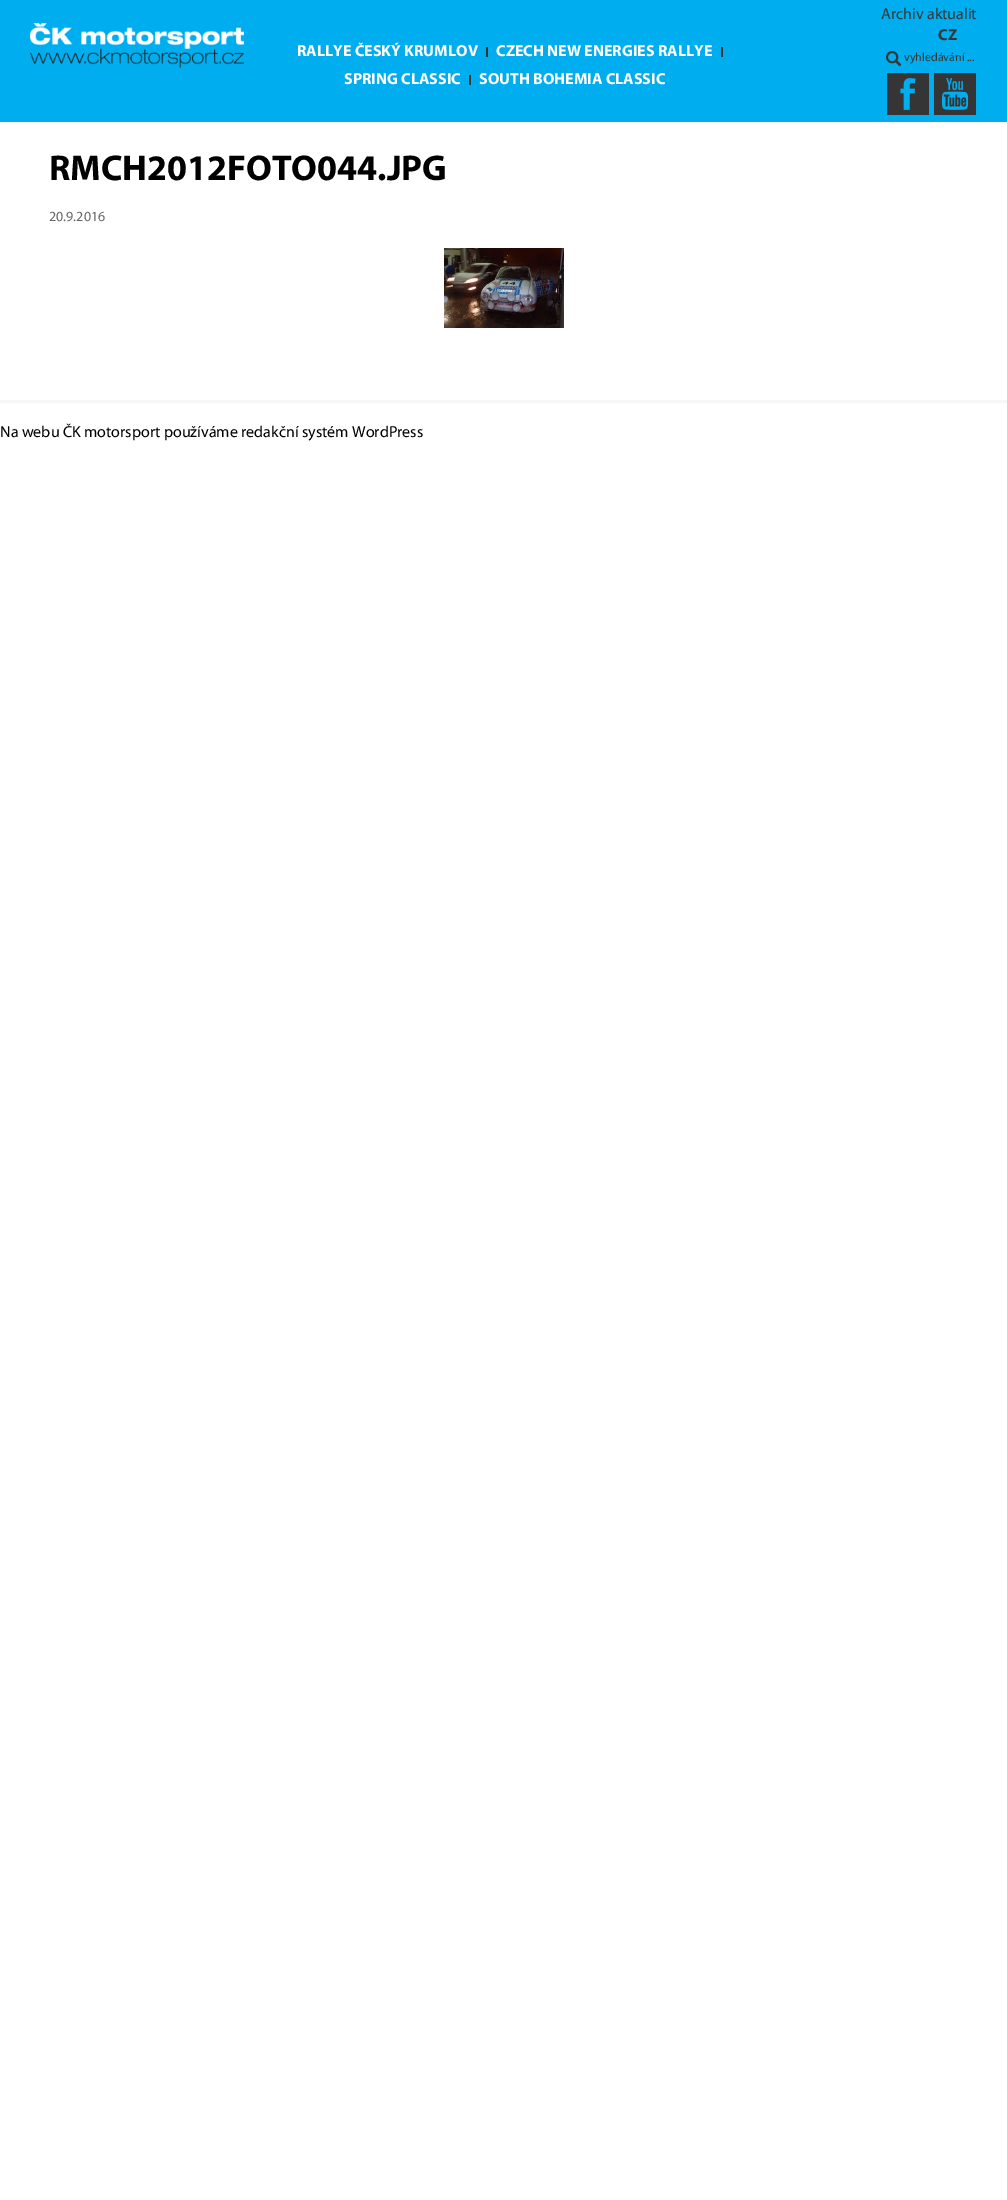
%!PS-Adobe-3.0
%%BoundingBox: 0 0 1007 2200
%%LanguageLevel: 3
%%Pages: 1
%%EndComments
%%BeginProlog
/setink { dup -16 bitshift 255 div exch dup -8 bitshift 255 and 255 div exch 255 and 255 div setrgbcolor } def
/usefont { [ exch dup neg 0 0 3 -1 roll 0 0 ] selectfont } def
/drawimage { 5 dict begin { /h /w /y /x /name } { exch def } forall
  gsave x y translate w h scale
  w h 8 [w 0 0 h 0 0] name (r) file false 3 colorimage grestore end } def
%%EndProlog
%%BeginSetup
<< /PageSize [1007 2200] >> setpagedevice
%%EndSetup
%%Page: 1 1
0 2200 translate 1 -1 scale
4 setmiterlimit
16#FFFFFF setink
0 0 1007 2200 rectfill
16#00AEEF setink
0 0 1007 122 rectfill
(img1.raw) 30 23 214 45 drawimage
/Myriad-Bold 16 usefont
16#FFFFFF setink
297 56 moveto (RALLYE ČESKÝ KRUMLOV) show
16#353535 setink
486 47 2 10 rectfill
16#FFFFFF setink
496 56 moveto (CZECH NEW ENERGIES RALLYE) show
16#353535 setink
721 47 2 10 rectfill
16#FFFFFF setink
344 84 moveto (SPRING CLASSIC) show
16#353535 setink
469 75 2 10 rectfill
16#FFFFFF setink
479 84 moveto (SOUTH BOHEMIA CLASSIC) show
/Myriad-Regular 16 usefont
16#353535 setink
881 19 moveto (Archiv aktualit) show
/Myriad-Bold 16 usefont
938 40 moveto (CZ) show
(img2.raw) 886 51 15 15 drawimage
/Myriad-Regular 12 usefont
904 61 moveto (vyhledávání ...) show
(img3.raw) 887 73 42 42 drawimage
(img4.raw) 934 73 42 42 drawimage
/Myriad-Bold 36 usefont
16#000000 setink
49 180 moveto (RMCH2012FOTO044.JPG) show
/Myriad-Regular 14 usefont
16#666666 setink
49 221 moveto (20.9.2016) show
(img5.raw) 444 248 120 80 drawimage
16#F7F7F7 setink
0 400 1007 3 rectfill
/Myriad-Regular 16 usefont
16#000000 setink
0 437 moveto (Na webu ČK motorsport používáme redakční systém WordPress) show
showpage
%%EOF
